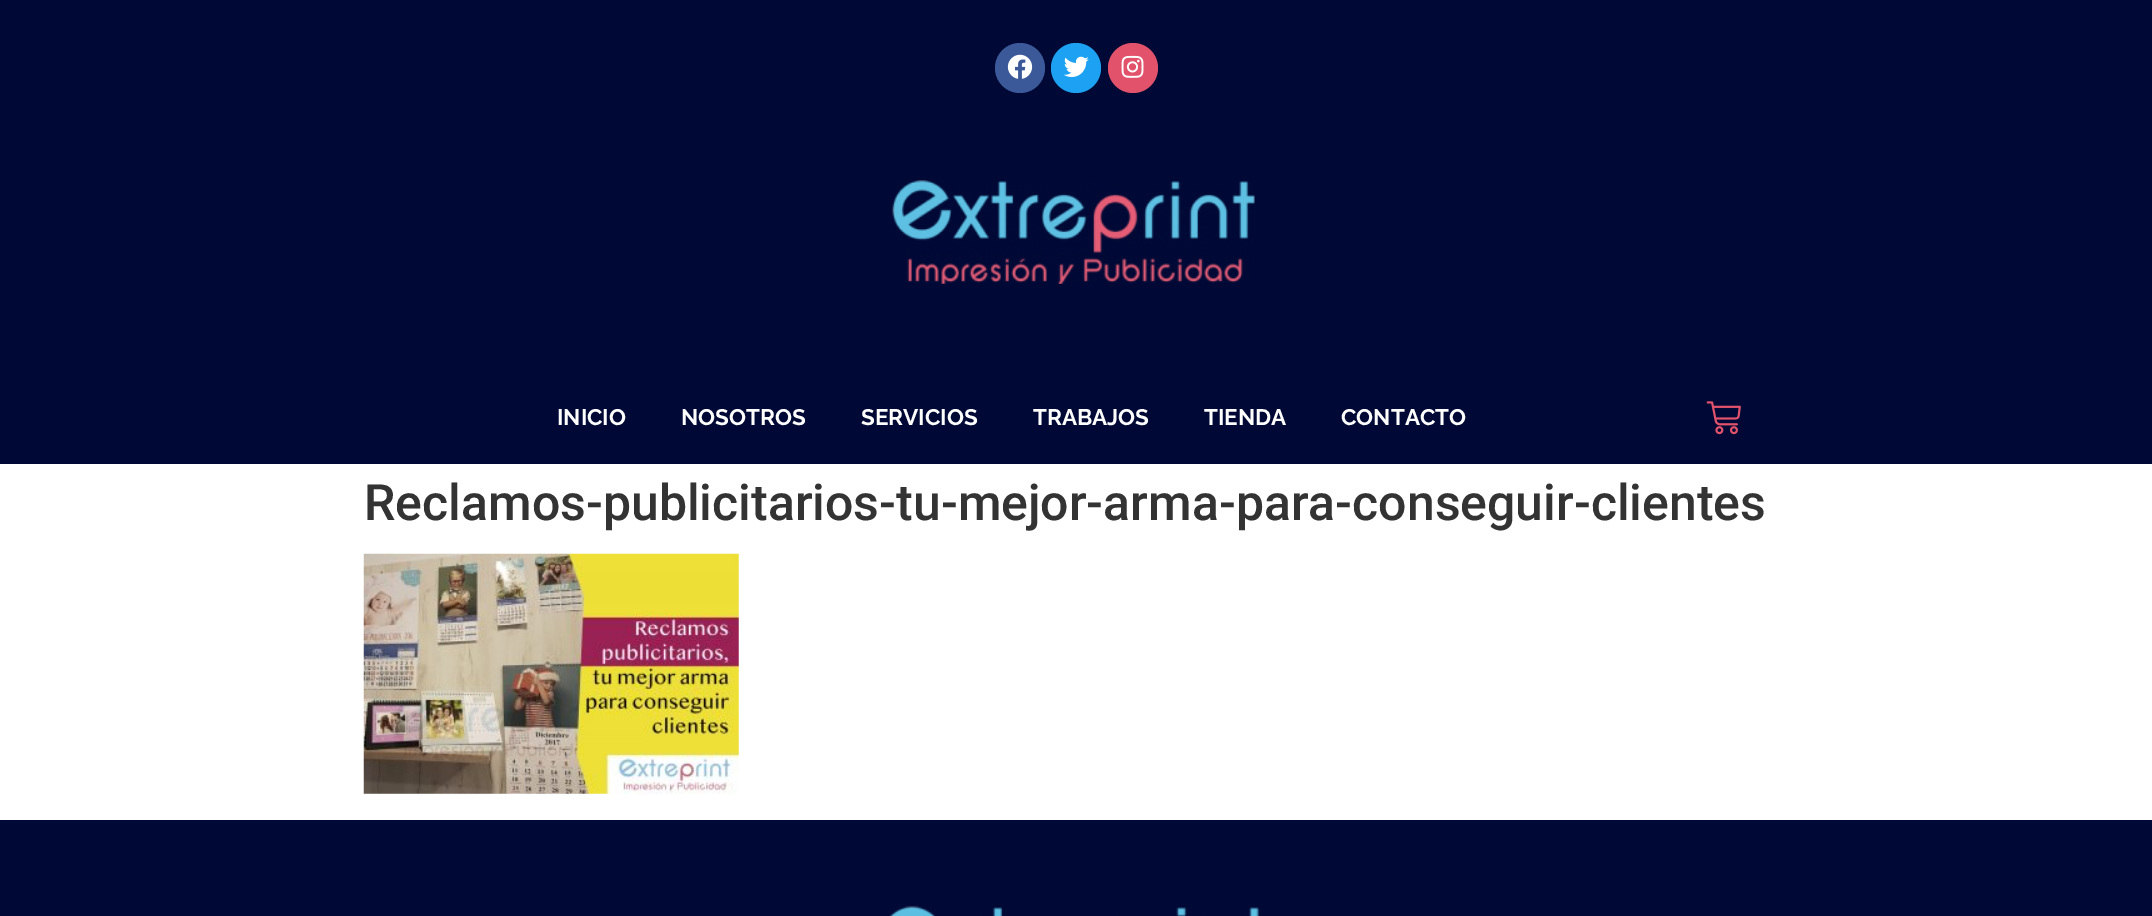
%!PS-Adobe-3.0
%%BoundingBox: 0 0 2152 916
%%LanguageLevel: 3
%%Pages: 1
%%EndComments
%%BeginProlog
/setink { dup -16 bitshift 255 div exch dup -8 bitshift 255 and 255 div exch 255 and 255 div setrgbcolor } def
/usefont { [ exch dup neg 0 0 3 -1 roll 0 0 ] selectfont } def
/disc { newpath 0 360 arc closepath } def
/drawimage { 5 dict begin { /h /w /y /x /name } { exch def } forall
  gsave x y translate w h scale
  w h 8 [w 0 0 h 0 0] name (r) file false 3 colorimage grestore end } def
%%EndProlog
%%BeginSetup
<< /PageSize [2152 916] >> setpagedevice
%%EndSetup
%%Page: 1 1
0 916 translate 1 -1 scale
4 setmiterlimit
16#FFFFFF setink
0 0 2152 916 rectfill
16#000935 setink
0 0 2152 464 rectfill
16#3B5998 setink
1020 68 25 disc fill
(img1.raw) 1007 54 26 25 drawimage
16#1DA1F2 setink
1076 68 25 disc fill
(img2.raw) 1064 56 25 21 drawimage
16#E2536B setink
1133 68 25 disc fill
(img3.raw) 1121 55 23 23 drawimage
(img4.raw) 892 180 363 104 drawimage
/Raleway-Bold 22.5 usefont
16#FFFFFF setink
[
    [(INICIO) 557 425]
    [(NOSOTROS) 681 425]
    [(SERVICIOS) 861 425]
    [(TRABAJOS) 1033 425]
    [(TIENDA) 1204 425]
    [(CONTACTO) 1341 425]
] { aload pop moveto show } forall
(img5.raw) 1706 401 35 34 drawimage
/Roboto-Medium 50 usefont
16#333333 setink
364 520 moveto (Reclamos-publicitarios-tu-mejor-arma-para-conseguir-clientes) show
(img6.raw) 363 553 376 241 drawimage
16#000935 setink
0 820 2152 96 rectfill
(img7.raw) 889 906 371 10 drawimage
showpage
%%EOF
